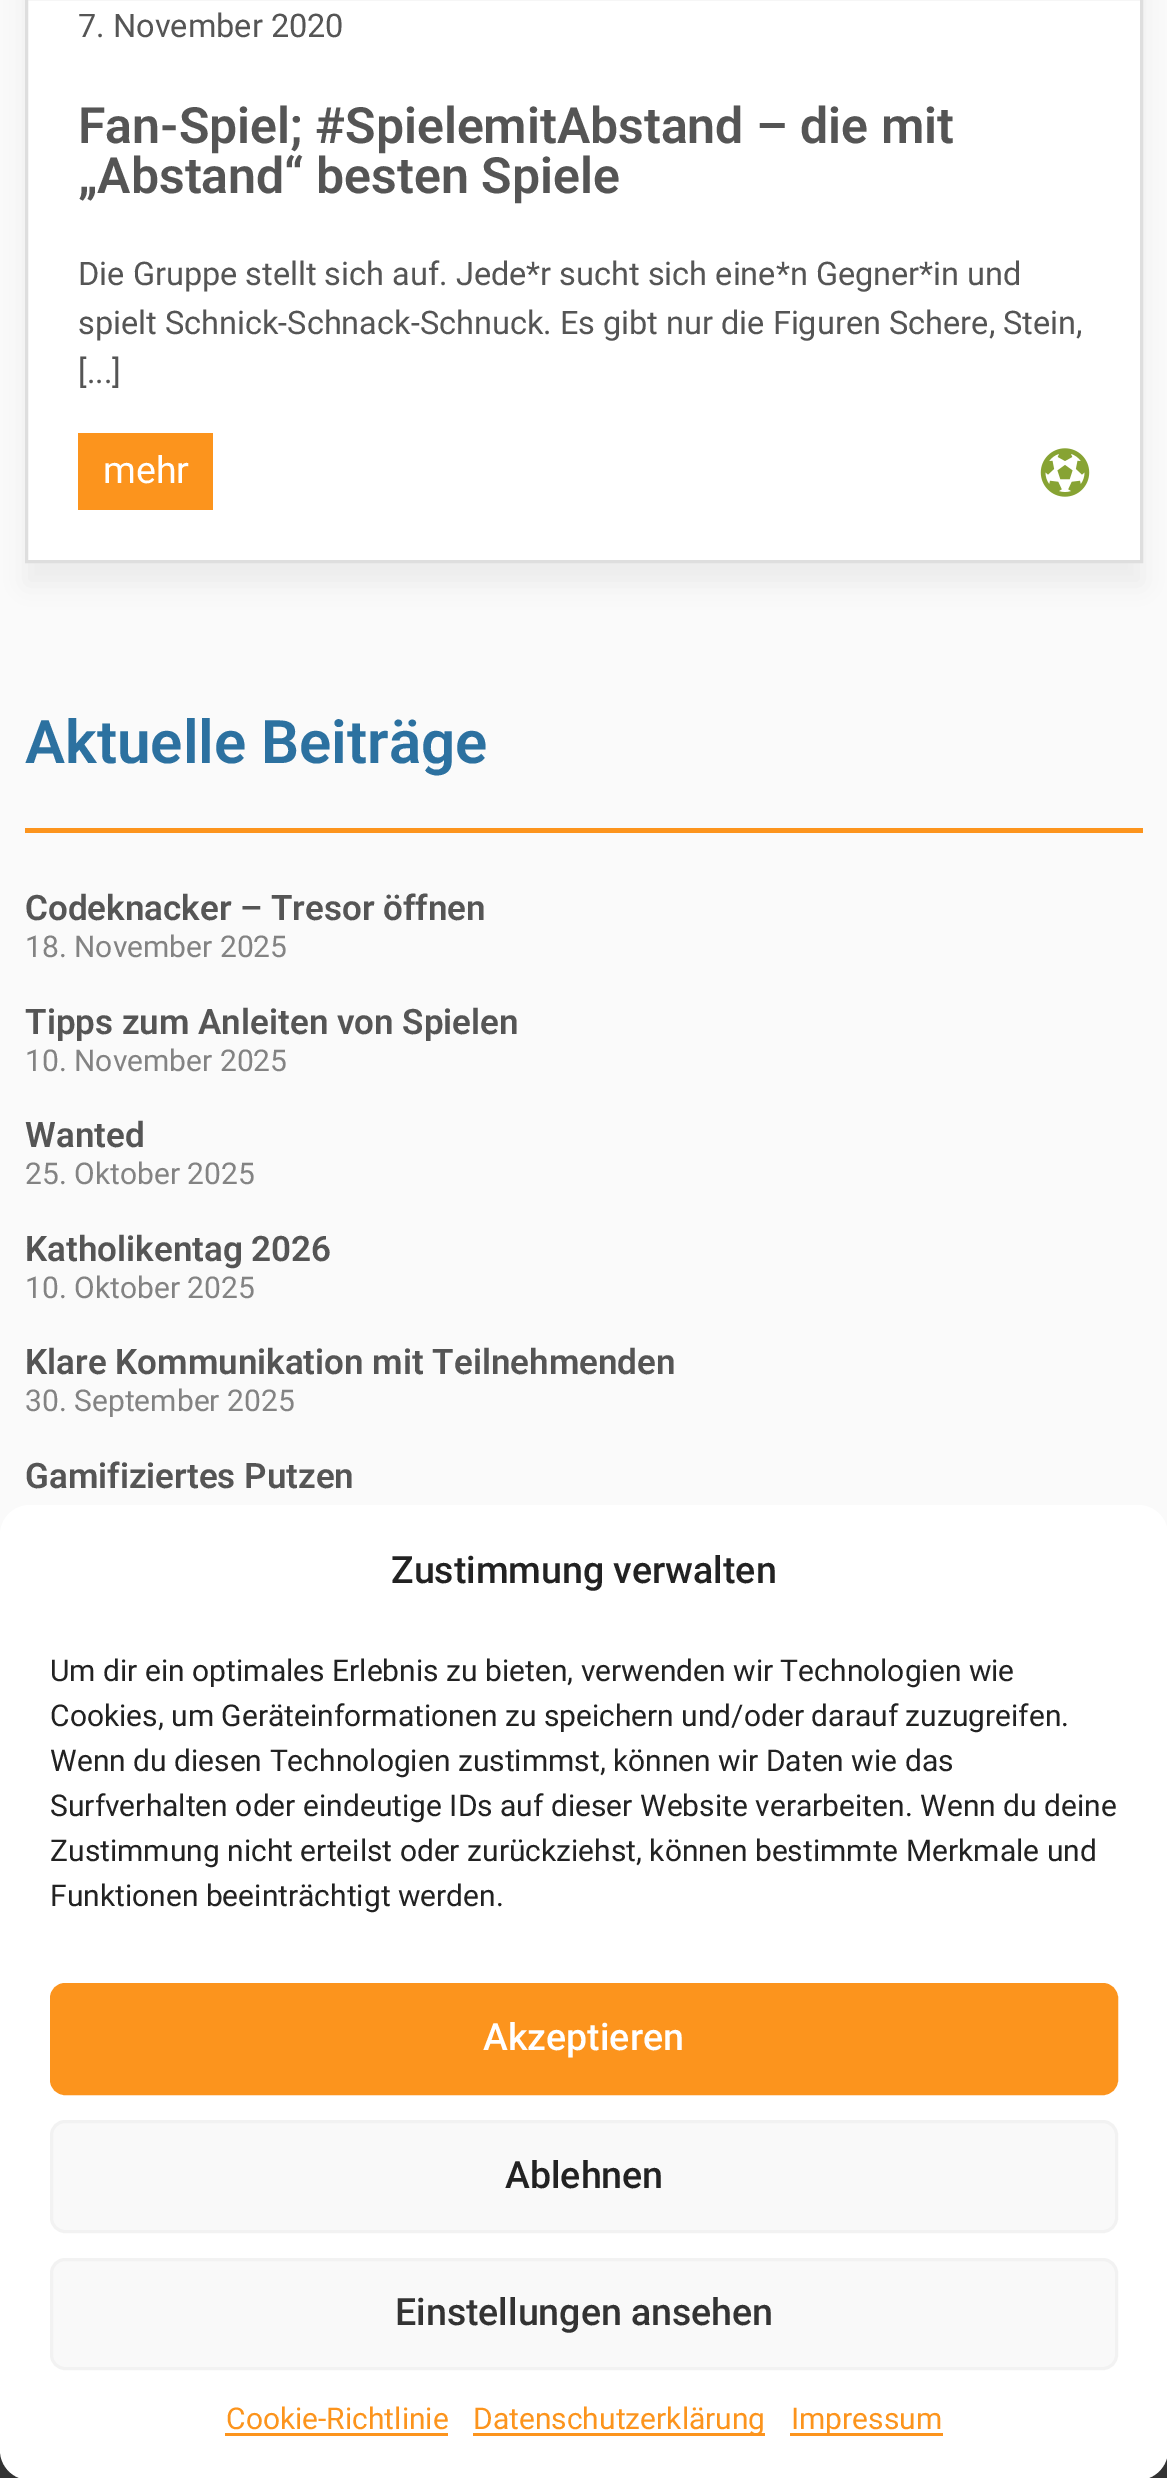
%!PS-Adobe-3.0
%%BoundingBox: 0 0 1167 2478
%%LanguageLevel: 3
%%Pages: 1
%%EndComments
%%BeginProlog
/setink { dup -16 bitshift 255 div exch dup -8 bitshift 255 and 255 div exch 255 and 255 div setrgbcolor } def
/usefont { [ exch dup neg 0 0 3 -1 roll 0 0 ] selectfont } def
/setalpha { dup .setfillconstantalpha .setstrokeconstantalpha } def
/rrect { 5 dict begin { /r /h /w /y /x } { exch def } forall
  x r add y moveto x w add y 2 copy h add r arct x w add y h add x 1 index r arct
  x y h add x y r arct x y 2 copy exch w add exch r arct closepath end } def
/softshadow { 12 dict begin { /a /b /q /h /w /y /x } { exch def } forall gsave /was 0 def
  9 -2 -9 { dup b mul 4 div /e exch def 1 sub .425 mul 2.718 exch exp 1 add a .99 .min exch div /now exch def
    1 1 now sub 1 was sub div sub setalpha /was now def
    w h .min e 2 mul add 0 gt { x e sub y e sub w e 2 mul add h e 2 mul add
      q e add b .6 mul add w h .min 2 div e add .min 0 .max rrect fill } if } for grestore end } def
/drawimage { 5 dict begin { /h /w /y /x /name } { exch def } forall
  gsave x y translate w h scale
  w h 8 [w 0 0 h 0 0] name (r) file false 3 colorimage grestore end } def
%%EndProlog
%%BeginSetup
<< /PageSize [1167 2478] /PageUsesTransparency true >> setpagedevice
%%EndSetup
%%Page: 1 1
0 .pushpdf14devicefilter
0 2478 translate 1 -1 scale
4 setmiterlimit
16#FAFAFA setink
0 0 1167 2478 rectfill
16#000000 setink
25 -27 1118 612 0 12.5 0.06 softshadow
16#FFFFFF setink
26.5 -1.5 moveto 1141.5 -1.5 lineto 1141.5 561.5 lineto 26.5 561.5 lineto closepath gsave fill grestore
16#DEDEDE setink
3 setlinewidth
stroke
/Roboto-Regular 32.5 usefont
16#555555 setink
78 37 moveto (7. November 2020) show
/Roboto-SemiBold 50 usefont
78 143 moveto (Fan-Spiel; #SpielemitAbstand – die mit) show
78 193 moveto („Abstand“ besten Spiele) show
/Roboto-Regular 32.5 usefont
[
    [(Die Gruppe stellt sich auf. Jede*r sucht sich eine*n Gegner*in und) 78 285]
    [(spielt Schnick-Schnack-Schnuck. Es gibt nur die Figuren Schere, Stein,) 78 334]
    [([...]) 78 383]
] { aload pop moveto show } forall
16#FC941D setink
78 433 135 77 rectfill
/Roboto-Regular 37.5 usefont
16#FFFFFF setink
103 483 moveto (mehr) show
(img1.raw) 1040 448 50 49 drawimage
/Roboto-SemiBold 60 usefont
16#2C71A0 setink
25 763 moveto (Aktuelle Beiträge) show
16#FC941D setink
25 828 1118 5 rectfill
/Roboto-SemiBold 35 usefont
16#555555 setink
25 920 moveto (Codeknacker – Tresor öffnen) show
/Roboto-Regular 30 usefont
16#838383 setink
25 957 moveto (18. November 2025) show
/Roboto-SemiBold 35 usefont
16#555555 setink
25 1034 moveto (Tipps zum Anleiten von Spielen) show
/Roboto-Regular 30 usefont
16#838383 setink
25 1071 moveto (10. November 2025) show
/Roboto-SemiBold 35 usefont
16#555555 setink
25 1147 moveto (Wanted) show
/Roboto-Regular 30 usefont
16#838383 setink
25 1184 moveto (25. Oktober 2025) show
/Roboto-SemiBold 35 usefont
16#555555 setink
25 1261 moveto (Katholikentag 2026) show
/Roboto-Regular 30 usefont
16#838383 setink
25 1298 moveto (10. Oktober 2025) show
/Roboto-SemiBold 35 usefont
16#555555 setink
25 1374 moveto (Klare Kommunikation mit Teilnehmenden) show
/Roboto-Regular 30 usefont
16#838383 setink
25 1411 moveto (30. September 2025) show
/Roboto-SemiBold 35 usefont
16#555555 setink
25 1488 moveto (Gamifiziertes Putzen) show
16#333333 setink
0 2450 1167 28 rectfill
16#FFFFFF setink
0 1505 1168 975 30 rrect fill
/Roboto-Medium 37.5 usefont
16#222222 setink
391 1583 moveto (Zustimmung verwalten) show
/Roboto-Regular 30 usefont
[
    [(Um dir ein optimales Erlebnis zu bieten, verwenden wir Technologien wie) 50 1681]
    [(Cookies, um Geräteinformationen zu speichern und/oder darauf zuzugreifen.) 50 1726]
    [(Wenn du diesen Technologien zustimmst, können wir Daten wie das) 50 1771]
    [(Surfverhalten oder eindeutige IDs auf dieser Website verarbeiten. Wenn du deine) 50 1816]
    [(Zustimmung nicht erteilst oder zurückziehst, können bestimmte Merkmale und) 50 1861]
    [(Funktionen beeinträchtigt werden.) 50 1906]
] { aload pop moveto show } forall
16#FC941D setink
51.5 1984.5 1065 109 13.5 rrect gsave fill grestore
stroke
/Roboto-Medium 37.5 usefont
16#FFFFFF setink
483 2050 moveto (Akzeptieren) show
16#F9F9F9 setink
51.5 2121.5 1065 110 13.5 rrect gsave fill grestore
16#F2F2F2 setink
stroke
16#222222 setink
505 2188 moveto (Ablehnen) show
16#F9F9F9 setink
51.5 2259.5 1065 109 13.5 rrect gsave fill grestore
16#F2F2F2 setink
stroke
16#333333 setink
395 2325 moveto (Einstellungen ansehen) show
/Roboto-Regular 30 usefont
16#FC941D setink
226 2429 moveto (Cookie-Richtlinie) show
225 2433 223 3 rectfill
473 2433 292 3 rectfill
473 2429 moveto (Datenschutzerklärung) show
790 2433 153 3 rectfill
791 2429 moveto (Impressum) show
.poppdf14devicefilter showpage
%%EOF
